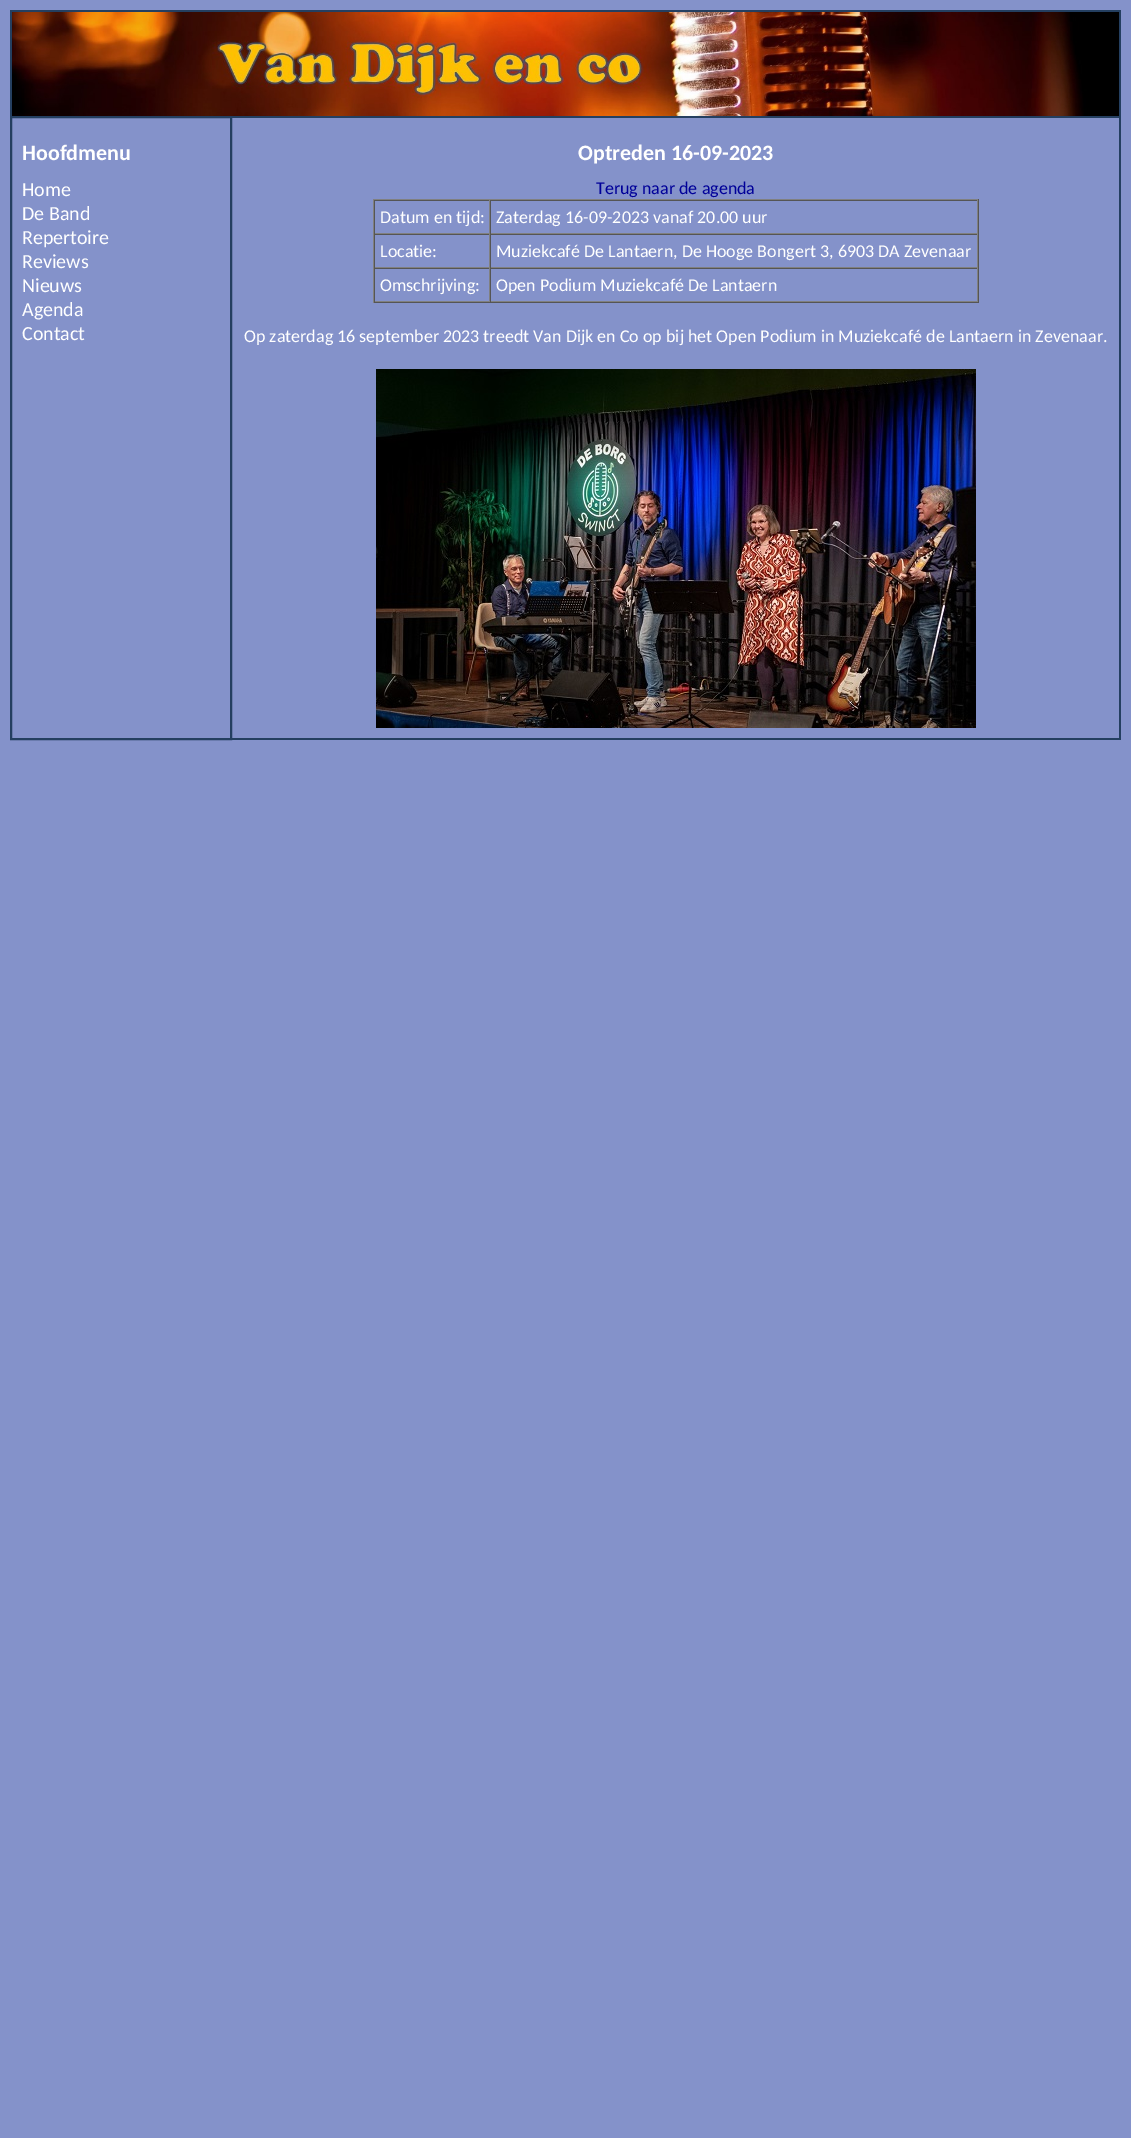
%!PS-Adobe-3.0
%%BoundingBox: 0 0 1131 2138
%%LanguageLevel: 3
%%Pages: 1
%%EndComments
%%BeginProlog
/setink { dup -16 bitshift 255 div exch dup -8 bitshift 255 and 255 div exch 255 and 255 div setrgbcolor } def
/usefont { [ exch dup neg 0 0 3 -1 roll 0 0 ] selectfont } def
/drawimage { 5 dict begin { /h /w /y /x /name } { exch def } forall
  gsave x y translate w h scale
  w h 8 [w 0 0 h 0 0] name (r) file false 3 colorimage grestore end } def
%%EndProlog
%%BeginSetup
<< /PageSize [1131 2138] >> setpagedevice
%%EndSetup
%%Page: 1 1
0 2138 translate 1 -1 scale
4 setmiterlimit
16#8492CA setink
0 0 1131 2138 rectfill
[
    [10 10 1111 2 16#243F60]
    [1119 10 2 106 16#243F60]
    [10 10 2 106 16#243F60]
] { aload pop setink rectfill } forall
(img1.raw) 12 12 1107 104 drawimage
2 setlinewidth
11 117 220 622 rectstroke
/Carlito-Bold 22 usefont
16#FFFFFF setink
22 160 moveto (Hoofdmenu) show
/Carlito-Regular 20 usefont
[
    [(Home) 22 196]
    [(De Band) 22 220]
    [(Repertoire) 22 244]
    [(Reviews) 22 268]
    [(Nieuws) 22 292]
    [(Agenda) 22 316]
    [(Contact) 22 340]
] { aload pop moveto show } forall
[
    [232 116 889 2 16#243F60]
    [1119 116 2 624 16#243F60]
    [232 738 889 2 16#243F60]
] { aload pop setink rectfill } forall
/Carlito-Bold 22 usefont
16#FFFFFF setink
578 160 moveto (Optreden 16-09-2023) show
/Carlito-Regular 18 usefont
16#000099 setink
596 194 moveto (Terug naar de agenda) show
[
    [373 199 606 1 16#808080]
    [978 199 1 104 16#555555]
    [373 302 606 1 16#555555]
    [373 199 1 104 16#808080]
    [374 200 604 1 16#555555]
    [489 200 1 34 16#808080]
    [374 233 116 1 16#808080]
    [374 200 1 34 16#555555]
] { aload pop setink rectfill } forall
16#FFFFFF setink
380 223 moveto (Datum en tijd:) show
[
    [977 200 1 34 16#808080]
    [490 233 488 1 16#808080]
    [490 200 1 34 16#555555]
] { aload pop setink rectfill } forall
16#FFFFFF setink
496 223 moveto (Zaterdag 16-09-2023 vanaf 20.00 uur) show
[
    [374 234 604 1 16#555555]
    [489 234 1 34 16#808080]
    [374 267 116 1 16#808080]
    [374 234 1 34 16#555555]
] { aload pop setink rectfill } forall
16#FFFFFF setink
380 257 moveto (Locatie:) show
[
    [977 234 1 34 16#808080]
    [490 267 488 1 16#808080]
    [490 234 1 34 16#555555]
] { aload pop setink rectfill } forall
16#FFFFFF setink
496 257 moveto (Muziekcafé De Lantaern, De Hooge Bongert 3, 6903 DA Zevenaar) show
[
    [374 268 604 1 16#555555]
    [489 268 1 34 16#808080]
    [374 301 116 1 16#808080]
    [374 268 1 34 16#555555]
] { aload pop setink rectfill } forall
16#FFFFFF setink
380 291 moveto (Omschrijving:) show
[
    [977 268 1 34 16#808080]
    [490 301 488 1 16#808080]
    [490 268 1 34 16#555555]
] { aload pop setink rectfill } forall
16#FFFFFF setink
496 291 moveto (Open Podium Muziekcafé De Lantaern) show
244 342 moveto (Op zaterdag 16 september 2023 treedt Van Dijk en Co op bij het Open Podium in Muziekcafé de Lantaern in Zevenaar.) show
(img2.raw) 376 369 600 359 drawimage
showpage
%%EOF
